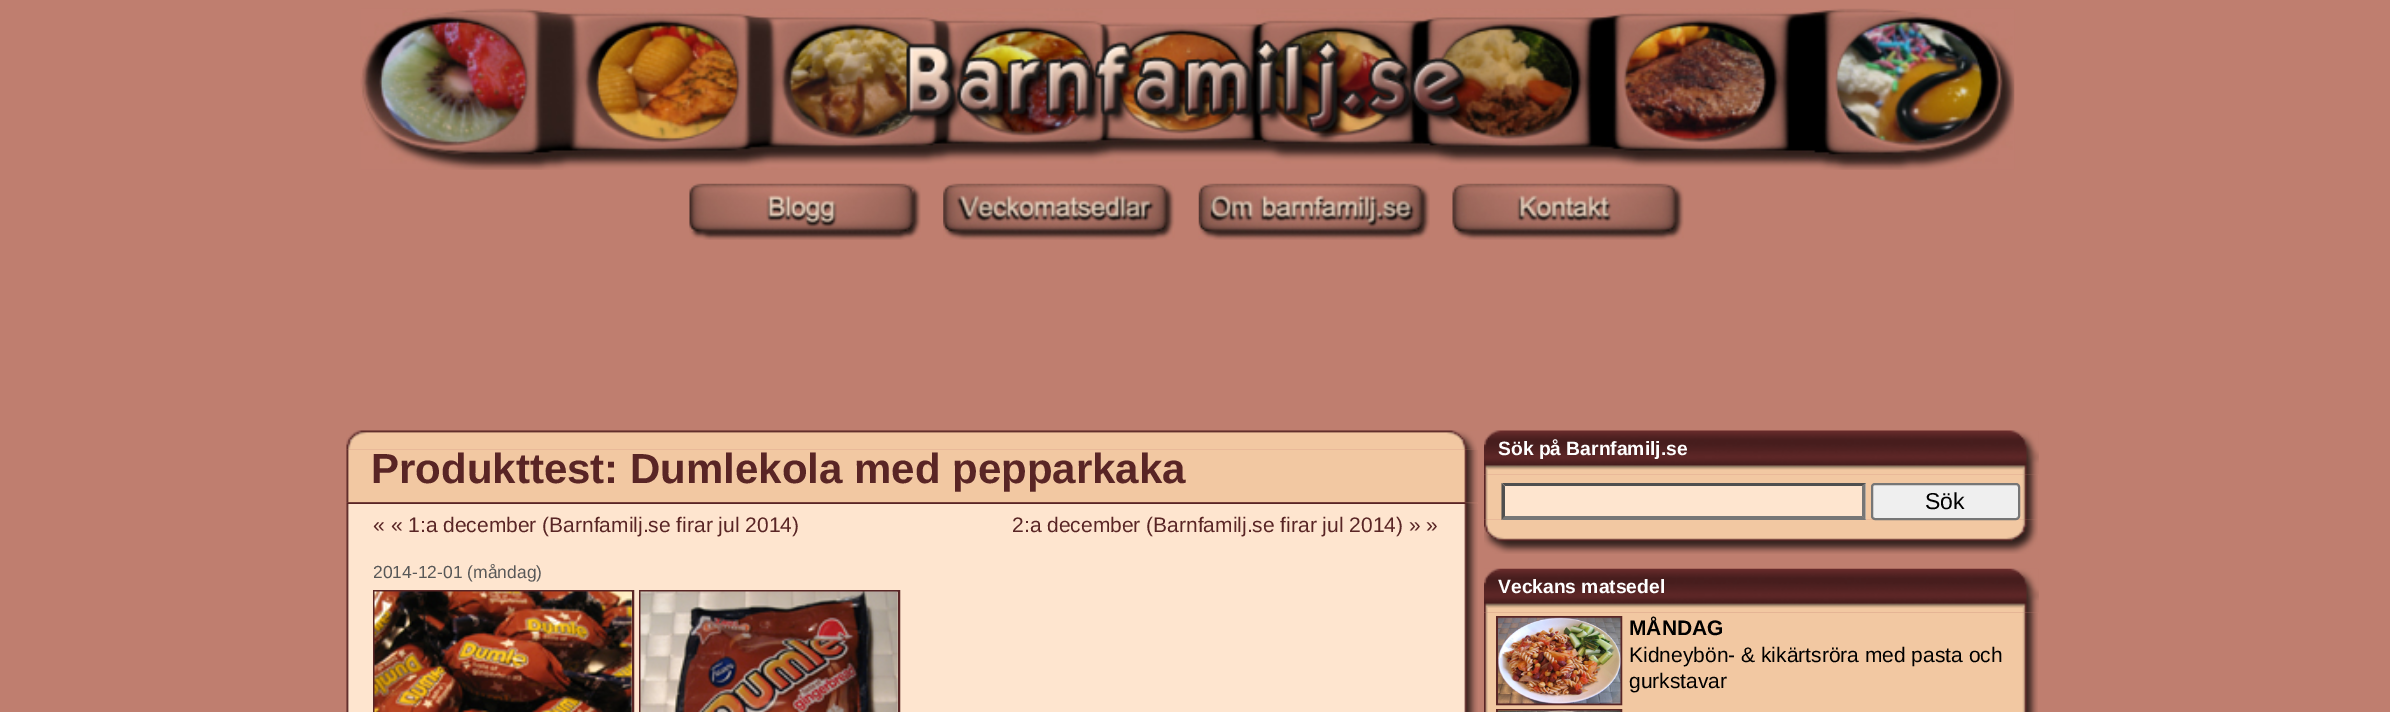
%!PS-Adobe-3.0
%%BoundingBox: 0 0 2390 712
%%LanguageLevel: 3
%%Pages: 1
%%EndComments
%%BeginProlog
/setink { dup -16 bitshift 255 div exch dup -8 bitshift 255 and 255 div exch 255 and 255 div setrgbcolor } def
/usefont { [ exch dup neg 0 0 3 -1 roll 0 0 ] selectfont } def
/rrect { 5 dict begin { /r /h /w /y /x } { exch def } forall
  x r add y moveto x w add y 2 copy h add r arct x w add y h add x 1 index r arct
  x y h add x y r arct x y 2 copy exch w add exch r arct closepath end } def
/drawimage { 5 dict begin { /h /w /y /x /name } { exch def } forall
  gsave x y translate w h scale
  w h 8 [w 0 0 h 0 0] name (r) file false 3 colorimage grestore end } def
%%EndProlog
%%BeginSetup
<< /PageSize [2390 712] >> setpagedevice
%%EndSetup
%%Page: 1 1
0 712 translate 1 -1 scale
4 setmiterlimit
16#BF7E6F setink
0 0 2390 712 rectfill
(img1.raw) 360 8 1655 162 drawimage
(img2.raw) 689 183 232 57 drawimage
(img3.raw) 943 183 232 57 drawimage
(img4.raw) 1198 183 232 57 drawimage
(img5.raw) 1452 183 232 57 drawimage
(img6.raw) 346 430 1131 20 drawimage
(img7.raw) 346 449 1132 54 drawimage
/LiberationSans-Bold 42 usefont
16#592525 setink
371 483 moveto (Produkttest: Dumlekola med pepparkaka) show
(img8.raw) 346 502 1131 2 drawimage
(img9.raw) 346 504 1132 208 drawimage
/LiberationSans-Regular 21 usefont
373 532 moveto (« « 1:a december \(Barnfamilj.se firar jul 2014\)) show
1012 532 moveto (2:a december \(Barnfamilj.se firar jul 2014\) » ») show
/LiberationSans-Regular 17.5 usefont
16#585858 setink
373 578 moveto (2014-12-01 \(måndag\)) show
16#592525 setink
2 setlinewidth
374 591 259 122 rectstroke
640 591 259 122 rectstroke
(img10.raw) 374 591 258 121 drawimage
(img11.raw) 640 591 258 121 drawimage
(img12.raw) 1484 430 555 45 drawimage
/LiberationSans-Bold 19.25 usefont
16#FFFFFF setink
1498 455 moveto (Sök på Barnfamilj.se) show
(img13.raw) 1484 474 554 46 drawimage
(img14.raw) 1484 519 554 35 drawimage
16#FEE5CF setink
1502 483 364 37 rectfill
16#4F4F4F setink
1502 483 moveto 1866 483 lineto 1862 486 lineto 1505 486 lineto closepath fill
16#767676 setink
1865.5 483 moveto 1865.5 520 lineto 1862 516 lineto 1862 486.5 lineto closepath fill
1866 520 moveto 1502 520 lineto 1505 516 lineto 1862 516 lineto closepath fill
16#4F4F4F setink
1501.5 520 moveto 1501.5 483 lineto 1505 486.5 lineto 1505 516 lineto closepath fill
16#EFEFEF setink
1872 484 147 35 3 rrect gsave fill grestore
16#767676 setink
stroke
/LiberationSans-Regular 23 usefont
16#000000 setink
1925 509 moveto (Sök) show
(img15.raw) 1484 568 555 45 drawimage
/LiberationSans-Bold 19.25 usefont
16#FFFFFF setink
1498 593 moveto (Veckans matsedel) show
(img16.raw) 1484 612 554 100 drawimage
16#592525 setink
1497 617 124 87 rectstroke
(img17.raw) 1498 617 123 87 drawimage
/LiberationSans-Bold 21 usefont
16#000000 setink
1629 635 moveto (MÅNDAG) show
/LiberationSans-Regular 21 usefont
1629 662 moveto (Kidneybön- & kikärtsröra med pasta och) show
1629 688 moveto (gurkstavar) show
16#592525 setink
1497 710 124 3 rectstroke
(img18.raw) 1498 710 123 2 drawimage
showpage
%%EOF
